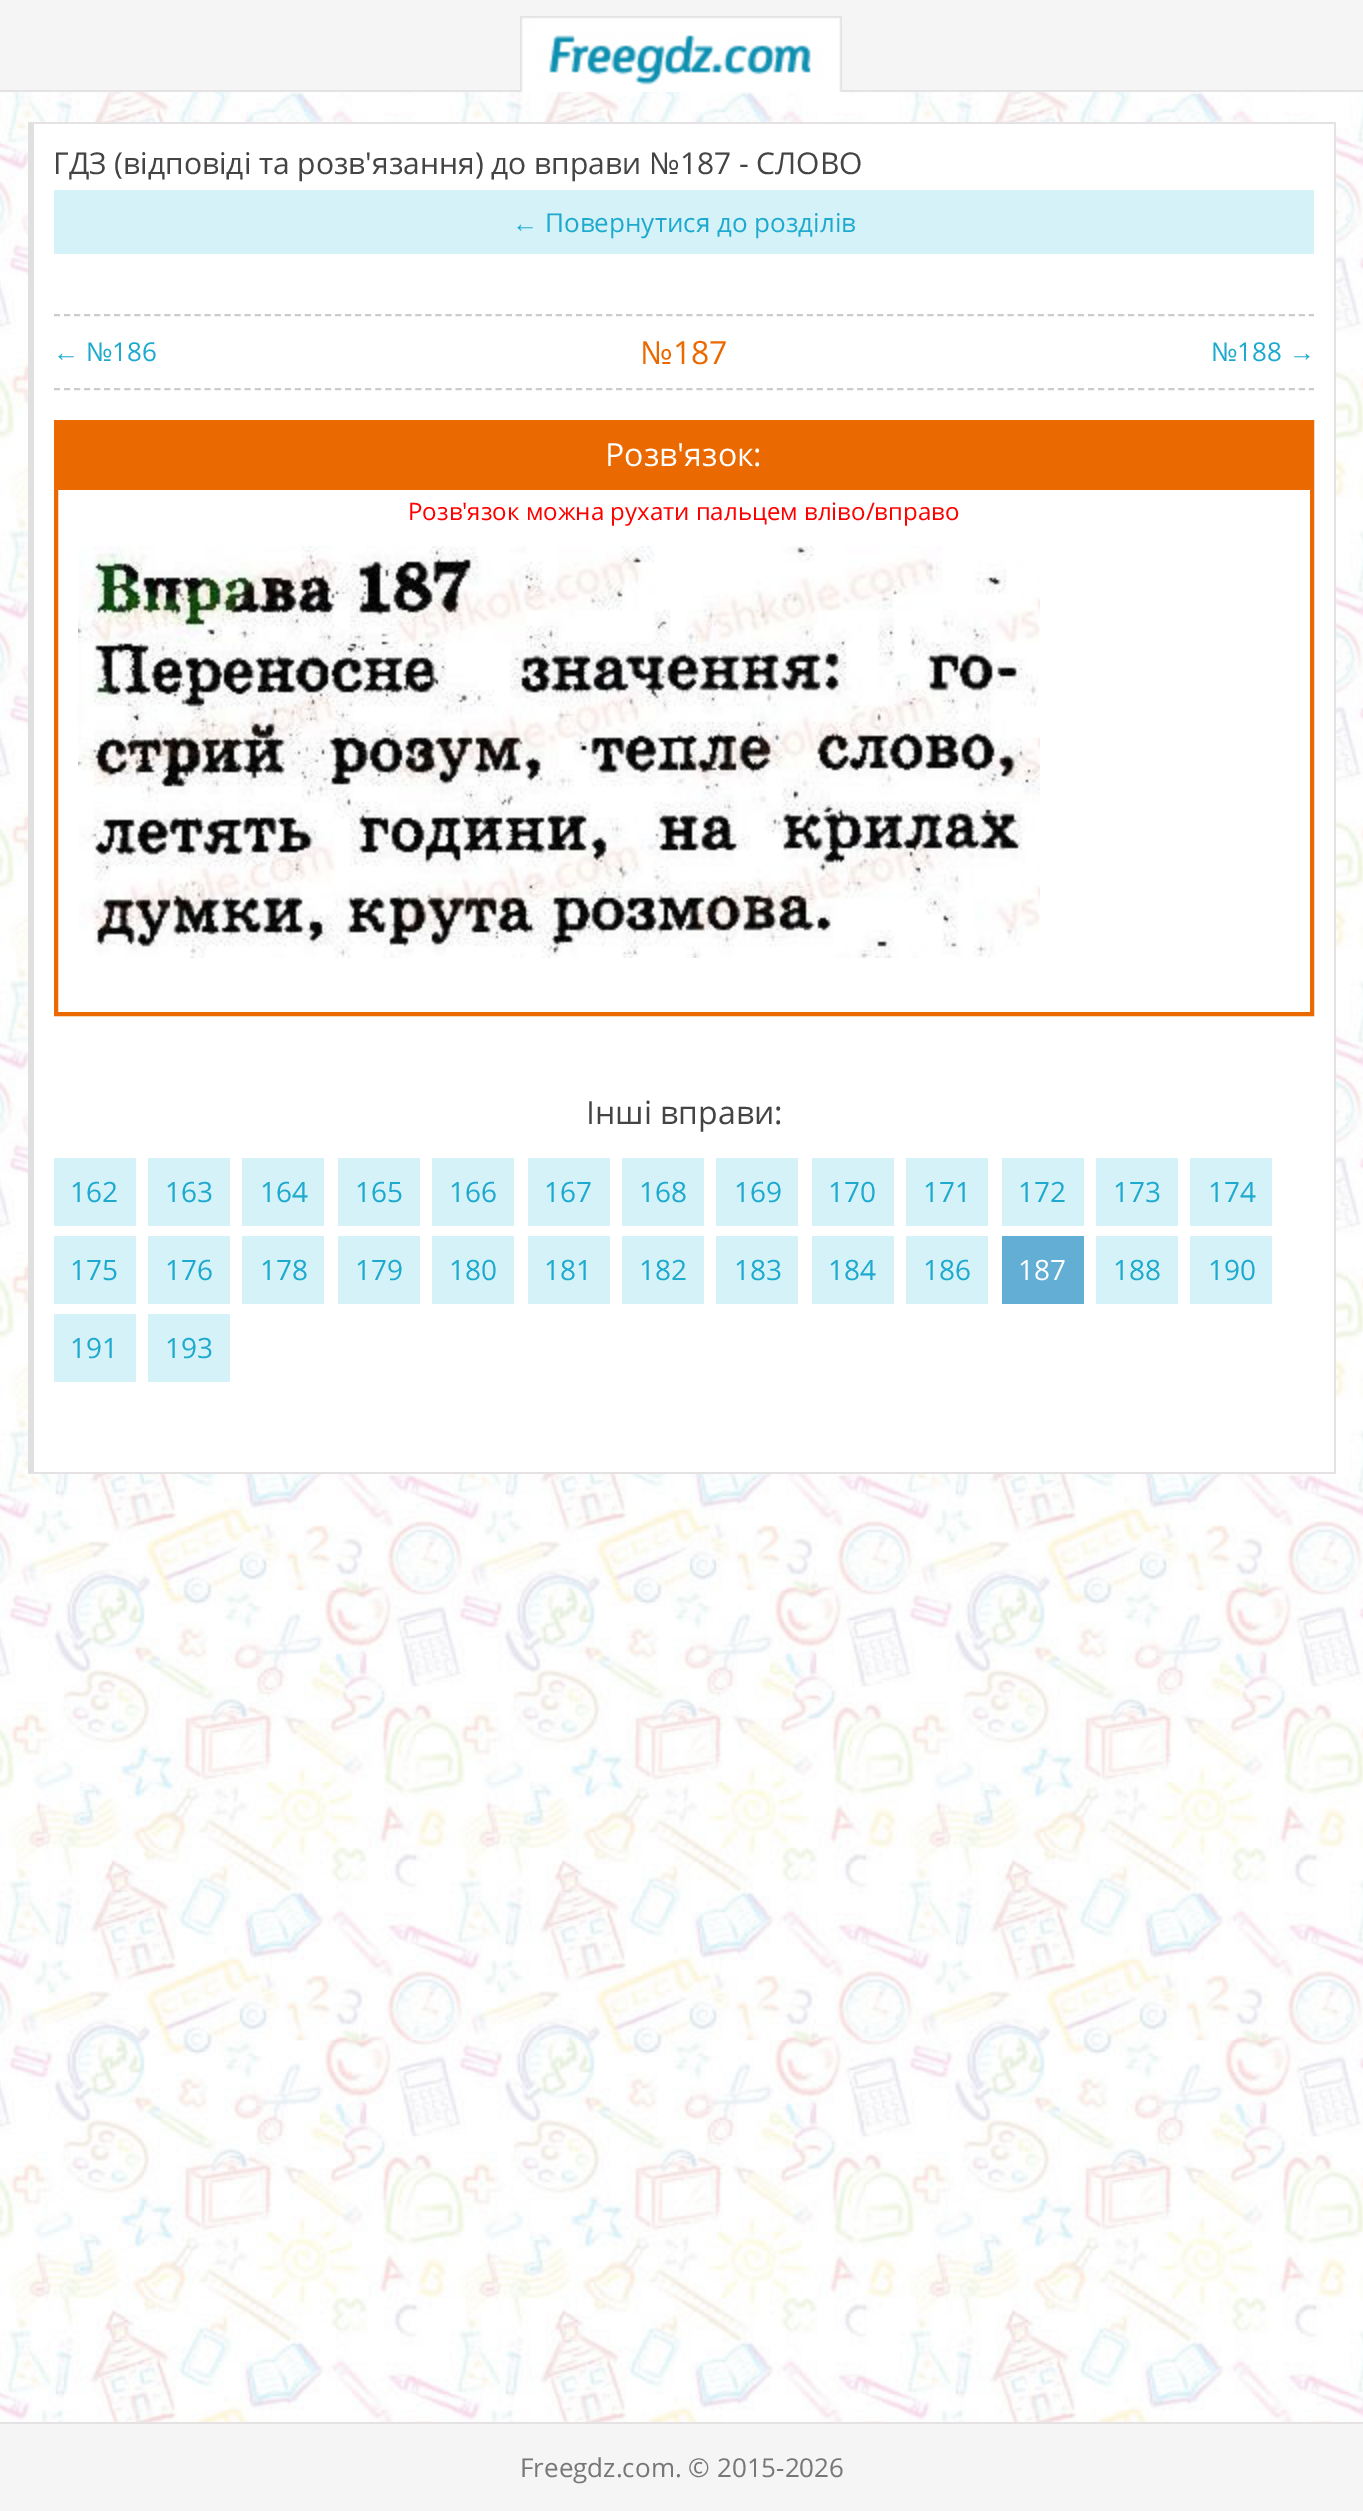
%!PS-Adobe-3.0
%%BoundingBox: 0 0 1363 2511
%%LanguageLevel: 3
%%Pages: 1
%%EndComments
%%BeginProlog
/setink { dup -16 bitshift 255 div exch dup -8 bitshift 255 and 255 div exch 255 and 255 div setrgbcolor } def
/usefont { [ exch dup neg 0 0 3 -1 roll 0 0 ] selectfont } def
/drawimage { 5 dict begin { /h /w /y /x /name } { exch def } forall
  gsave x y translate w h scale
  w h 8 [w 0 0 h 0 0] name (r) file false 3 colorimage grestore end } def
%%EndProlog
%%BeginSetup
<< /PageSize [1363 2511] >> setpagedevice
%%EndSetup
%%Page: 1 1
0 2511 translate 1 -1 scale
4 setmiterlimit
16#FFFFFF setink
0 0 1363 2511 rectfill
(img1.raw) 0 92 1363 2330 drawimage
16#F5F5F5 setink
0 0 1363 90 rectfill
16#E4E2E2 setink
0 90 1363 2 rectfill
(img2.raw) 520 16 322 76 drawimage
16#FFFFFF setink
34 124 1300 1348 rectfill
16#E4E2E2 setink
28 122 moveto 1336 122 lineto 1334 124 lineto 34 124 lineto closepath fill
1334 122 2 1352 rectfill
1336 1474 moveto 28 1474 lineto 34 1472 lineto 1334 1472 lineto closepath fill
16#E0E0E0 setink
28 1474 moveto 28 122 lineto 34 124 lineto 34 1472 lineto closepath fill
/OpenSans-Regular 30 usefont
16#444444 setink
53 174 moveto (ГДЗ \(відповіді та розв'язання\) до вправи №187 - СЛОВО) show
16#D6F2F9 setink
54 190 1260 64 rectfill
/LiberationSans-Regular 26 usefont
16#1EAACE setink
512 232 moveto (←) show
/OpenSans-Regular 26 usefont
545 232 moveto (Повернутися до розділів) show
16#CCCCCC setink
2 setlinewidth
[6 4.04] 0 setdash
54 315 moveto 1314 315 lineto stroke
54 389 moveto 1314 389 lineto stroke
/LiberationSans-Regular 26 usefont
16#1EAACE setink
53 361 moveto (←) show
/OpenSans-Regular 26 usefont
86 361 moveto (№186) show
/OpenSans-Regular 32 usefont
16#EA6900 setink
640 364 moveto (№187) show
/OpenSans-Regular 26 usefont
16#1EAACE setink
1211 361 moveto (№188) show
/LiberationSans-Regular 26 usefont
1289 361 moveto (→) show
16#EA6900 setink
4 setlinewidth
[] 0 setdash
56 422 1256 592 rectstroke
58 424 1252 66 rectfill
/OpenSans-Regular 32 usefont
16#FFFFFF setink
605 466 moveto (Розв'язок:) show
/OpenSans-Regular 24 usefont
16#FF0000 setink
408 520 moveto (Розв'язок можна рухати пальцем вліво/вправо) show
(img3.raw) 78 546 962 412 drawimage
/OpenSans-Regular 32 usefont
16#444444 setink
586 1124 moveto (Інші вправи:) show
16#D6F2F9 setink
54 1158 82 68 rectfill
/OpenSans-Regular 28 usefont
16#1EAACE setink
70 1202 moveto (162) show
16#D6F2F9 setink
148 1158 82 68 rectfill
16#1EAACE setink
165 1202 moveto (163) show
16#D6F2F9 setink
242 1158 82 68 rectfill
16#1EAACE setink
260 1202 moveto (164) show
16#D6F2F9 setink
338 1158 82 68 rectfill
16#1EAACE setink
355 1202 moveto (165) show
16#D6F2F9 setink
432 1158 82 68 rectfill
16#1EAACE setink
449 1202 moveto (166) show
16#D6F2F9 setink
528 1158 82 68 rectfill
16#1EAACE setink
544 1202 moveto (167) show
16#D6F2F9 setink
622 1158 82 68 rectfill
16#1EAACE setink
639 1202 moveto (168) show
16#D6F2F9 setink
716 1158 82 68 rectfill
16#1EAACE setink
734 1202 moveto (169) show
16#D6F2F9 setink
812 1158 82 68 rectfill
16#1EAACE setink
828 1202 moveto (170) show
16#D6F2F9 setink
906 1158 82 68 rectfill
16#1EAACE setink
923 1202 moveto (171) show
16#D6F2F9 setink
1002 1158 82 68 rectfill
16#1EAACE setink
1018 1202 moveto (172) show
16#D6F2F9 setink
1096 1158 82 68 rectfill
16#1EAACE setink
1113 1202 moveto (173) show
16#D6F2F9 setink
1190 1158 82 68 rectfill
16#1EAACE setink
1208 1202 moveto (174) show
16#D6F2F9 setink
54 1236 82 68 rectfill
16#1EAACE setink
70 1280 moveto (175) show
16#D6F2F9 setink
148 1236 82 68 rectfill
16#1EAACE setink
165 1280 moveto (176) show
16#D6F2F9 setink
242 1236 82 68 rectfill
16#1EAACE setink
260 1280 moveto (178) show
16#D6F2F9 setink
338 1236 82 68 rectfill
16#1EAACE setink
355 1280 moveto (179) show
16#D6F2F9 setink
432 1236 82 68 rectfill
16#1EAACE setink
449 1280 moveto (180) show
16#D6F2F9 setink
528 1236 82 68 rectfill
16#1EAACE setink
544 1280 moveto (181) show
16#D6F2F9 setink
622 1236 82 68 rectfill
16#1EAACE setink
639 1280 moveto (182) show
16#D6F2F9 setink
716 1236 82 68 rectfill
16#1EAACE setink
734 1280 moveto (183) show
16#D6F2F9 setink
812 1236 82 68 rectfill
16#1EAACE setink
828 1280 moveto (184) show
16#D6F2F9 setink
906 1236 82 68 rectfill
16#1EAACE setink
923 1280 moveto (186) show
16#63AED4 setink
1002 1236 82 68 rectfill
16#FFFFFF setink
1018 1280 moveto (187) show
16#D6F2F9 setink
1096 1236 82 68 rectfill
16#1EAACE setink
1113 1280 moveto (188) show
16#D6F2F9 setink
1190 1236 82 68 rectfill
16#1EAACE setink
1208 1280 moveto (190) show
16#D6F2F9 setink
54 1314 82 68 rectfill
16#1EAACE setink
70 1358 moveto (191) show
16#D6F2F9 setink
148 1314 82 68 rectfill
16#1EAACE setink
165 1358 moveto (193) show
16#F5F5F5 setink
0 2424 1363 87 rectfill
16#E4E2E2 setink
0 2422 1363 2 rectfill
/OpenSans-Regular 26 usefont
16#777777 setink
520 2477 moveto (Freegdz.com. © 2015-2026) show
showpage
%%EOF
